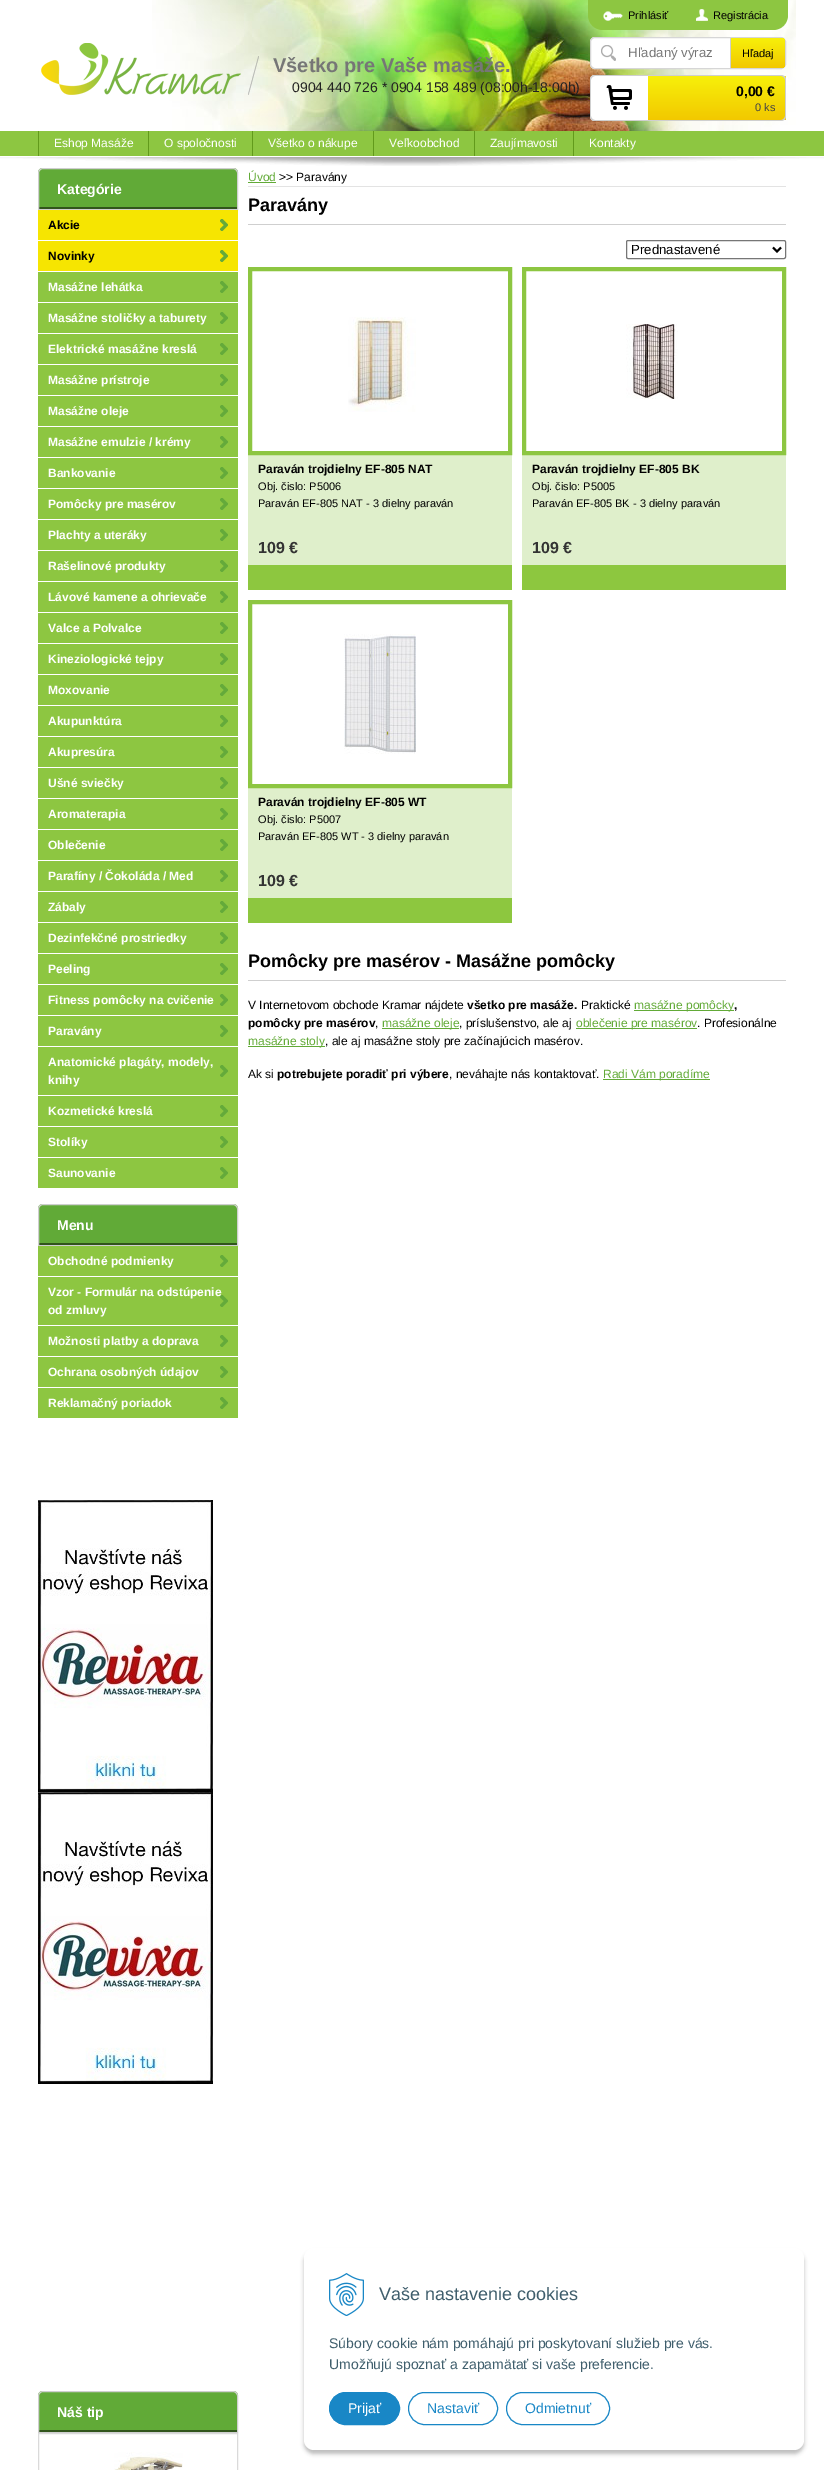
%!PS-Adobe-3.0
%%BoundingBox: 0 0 824 2470
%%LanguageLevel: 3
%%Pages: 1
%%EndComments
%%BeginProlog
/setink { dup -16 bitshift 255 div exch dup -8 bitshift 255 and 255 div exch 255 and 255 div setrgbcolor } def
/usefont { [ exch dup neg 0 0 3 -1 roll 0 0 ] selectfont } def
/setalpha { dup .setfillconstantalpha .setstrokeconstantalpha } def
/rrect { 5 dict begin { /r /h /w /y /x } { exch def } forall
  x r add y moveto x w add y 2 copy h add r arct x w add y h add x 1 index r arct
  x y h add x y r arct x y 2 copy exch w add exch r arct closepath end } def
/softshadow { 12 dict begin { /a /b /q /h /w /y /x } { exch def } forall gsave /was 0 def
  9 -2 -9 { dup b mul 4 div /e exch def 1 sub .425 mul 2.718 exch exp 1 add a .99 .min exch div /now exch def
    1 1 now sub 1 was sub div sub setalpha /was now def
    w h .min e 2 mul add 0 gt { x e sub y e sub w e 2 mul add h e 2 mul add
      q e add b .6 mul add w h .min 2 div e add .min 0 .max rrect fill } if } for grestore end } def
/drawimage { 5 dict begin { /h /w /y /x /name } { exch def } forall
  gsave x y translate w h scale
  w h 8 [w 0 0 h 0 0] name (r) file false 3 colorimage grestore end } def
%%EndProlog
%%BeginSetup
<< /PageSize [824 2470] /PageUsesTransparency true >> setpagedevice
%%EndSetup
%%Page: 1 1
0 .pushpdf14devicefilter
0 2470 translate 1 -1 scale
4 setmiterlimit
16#FFFFFF setink
0 0 824 2470 rectfill
(img1.raw) 152 0 644 131 drawimage
16#8DC641 setink
588 0 moveto 788 0 lineto 788 15 lineto 788 23.5 781.5 30 773 30 curveto 603 30 lineto 594.5 30 588 23.5 588 15 curveto closepath fill
(img2.raw) 603 11 20 10 drawimage
/LiberationSans-Regular 11 usefont
16#000000 setink
628 19 moveto (Prihlásiť) show
(img3.raw) 696 9 12 12 drawimage
713 19 moveto (Registrácia) show
16#FFFFFF setink
595 75 moveto 648 75 lineto 648 121 lineto 595 121 lineto 592 121 590 119 590 116 curveto 590 80 lineto 590 77 592 75 595 75 curveto closepath fill
16#CFCFCF setink
595 75 moveto 648 75 lineto 648 121 lineto 595 121 lineto 592 121 590 119 590 116 curveto 590 80 lineto 590 77 592 75 595 75 curveto closepath 595 76 moveto 648 76 lineto 648 120 lineto 595 120 lineto 593 120 591 118 591 116 curveto 591 80 lineto 591 78 593 76 595 76 curveto closepath eofill
16#000000 setink
606 85 26 25 rectfill
(img4.raw) 606 85 26 25 drawimage
gsave
648 75 moveto 781 75 lineto 784 75 786 77 786 80 curveto 786 116 lineto 786 119 784 121 781 121 curveto 648 121 lineto closepath clip newpath
gsave 648 76 moveto 786 76 lineto 786 120 lineto 648 120 lineto closepath clip newpath
<< /ShadingType 2 /ColorSpace /DeviceRGB /Coords [717 76 717 120] /Extend [true true] /Function << /FunctionType 2 /Domain [0 1] /C0 [0.969 0.941 0.039] /C1 [0.949 0.784 0] /N 1 >> >> shfill grestore
grestore
16#CFCFCF setink
648 75 moveto 781 75 lineto 784 75 786 77 786 80 curveto 786 116 lineto 786 119 784 121 781 121 curveto 648 121 lineto closepath 648 76 moveto 781 76 lineto 783 76 785 78 785 80 curveto 785 116 lineto 785 118 783 120 781 120 curveto 648 120 lineto closepath eofill
/LiberationSans-Bold 14 usefont
16#000000 setink
736 96 moveto (0,00 €) show
/LiberationSans-Regular 11 usefont
16#444444 setink
755 111 moveto (0 ks) show
16#FFFFFF setink
590 37 196 32 5 rrect fill
(img5.raw) 601 45 15 16 drawimage
16#D6D6D6 setink
590.5 37.5 195 31 4.5 rrect stroke
/LiberationSans-Regular 13.25 usefont
16#767676 setink
628 57 moveto (Hľadaný výraz) show
gsave 730 38 moveto 781 38 lineto 783 38 785 40 785 42 curveto 785 64 lineto 785 66 783 68 781 68 curveto 730 68 lineto closepath clip newpath
<< /ShadingType 2 /ColorSpace /DeviceRGB /Coords [758 38 758 68] /Extend [true true] /Function << /FunctionType 2 /Domain [0 1] /C0 [0.969 0.941 0.039] /C1 [0.949 0.784 0] /N 1 >> >> shfill grestore
16#CFCFCF setink
730 38 1 30 rectfill
/LiberationSans-Regular 11 usefont
16#000000 setink
742 57 moveto (Hľadaj) show
(img6.raw) 41 43 218 52 drawimage
/LiberationSans-Bold 20 usefont
16#767676 setink
273 72 moveto (Všetko pre Vaše masáže.) show
/LiberationSans-Regular 14 usefont
16#222222 setink
292 92 moveto (0904 440 726 * 0904 158 489 \(08:00h-18:00h\)) show
(img7.raw) 0 157 824 9 drawimage
16#8DC641 setink
0 131 824 25 rectfill
16#629A1B setink
38 131 1 25 rectfill
/LiberationSans-Regular 12 usefont
16#FFFFFF setink
54 147 moveto (Eshop Masáže) show
16#629A1B setink
148 131 1 25 rectfill
16#FFFFFF setink
164 147 moveto (O spoločnosti) show
16#629A1B setink
252 131 1 25 rectfill
16#FFFFFF setink
268 147 moveto (Všetko o nákupe) show
16#629A1B setink
373 131 1 25 rectfill
16#FFFFFF setink
389 147 moveto (Veľkoobchod) show
16#629A1B setink
474 131 1 25 rectfill
16#FFFFFF setink
490 147 moveto (Zaujímavosti) show
16#629A1B setink
573 131 1 25 rectfill
16#FFFFFF setink
589 147 moveto (Kontakty) show
16#61AA37 setink
43 168 moveto 233 168 lineto 236 168 238 170 238 173 curveto 238 210 lineto 38 210 lineto 38 173 lineto 38 170 40 168 43 168 curveto closepath fill
16#31551C setink
39 207 198 2 rectfill
16#CFCFCF setink
43 168.5 moveto 233 168.5 lineto 235.5 168.5 237.5 170.5 237.5 173 curveto 237.5 209.5 lineto 38.5 209.5 lineto 38.5 173 lineto 38.5 170.5 40.5 168.5 43 168.5 curveto closepath stroke
/LiberationSans-Bold 14 usefont
16#FFFFFF setink
57 194 moveto (Kategórie) show
16#F6E501 setink
38 210 200 30 rectfill
(img8.raw) 220 219 8 12 drawimage
/LiberationSans-Bold 12 usefont
16#000000 setink
48 229 moveto (Akcie) show
16#F6E501 setink
38 241 200 30 rectfill
(img8.raw) 220 250 8 12 drawimage
16#000000 setink
48 260 moveto (Novinky) show
16#8DC641 setink
38 272 200 30 rectfill
(img9.raw) 220 281 8 12 drawimage
16#FFFFFF setink
48 291 moveto (Masážne lehátka) show
16#8DC641 setink
38 303 200 30 rectfill
(img9.raw) 220 312 8 12 drawimage
16#FFFFFF setink
48 322 moveto (Masážne stoličky a taburety) show
16#8DC641 setink
38 334 200 30 rectfill
(img9.raw) 220 343 8 12 drawimage
16#FFFFFF setink
48 353 moveto (Elektrické masážne kreslá) show
16#8DC641 setink
38 365 200 30 rectfill
(img9.raw) 220 374 8 12 drawimage
16#FFFFFF setink
48 384 moveto (Masážne prístroje) show
16#8DC641 setink
38 396 200 30 rectfill
(img9.raw) 220 405 8 12 drawimage
16#FFFFFF setink
48 415 moveto (Masážne oleje) show
16#8DC641 setink
38 427 200 30 rectfill
(img9.raw) 220 436 8 12 drawimage
16#FFFFFF setink
48 446 moveto (Masážne emulzie / krémy) show
16#8DC641 setink
38 458 200 30 rectfill
(img9.raw) 220 467 8 12 drawimage
16#FFFFFF setink
48 477 moveto (Bankovanie) show
16#8DC641 setink
38 489 200 30 rectfill
(img9.raw) 220 498 8 12 drawimage
16#FFFFFF setink
48 508 moveto (Pomôcky pre masérov) show
16#8DC641 setink
38 520 200 30 rectfill
(img9.raw) 220 529 8 12 drawimage
16#FFFFFF setink
48 539 moveto (Plachty a uteráky) show
16#8DC641 setink
38 551 200 30 rectfill
(img9.raw) 220 560 8 12 drawimage
16#FFFFFF setink
48 570 moveto (Rašelinové produkty) show
16#8DC641 setink
38 582 200 30 rectfill
(img9.raw) 220 591 8 12 drawimage
16#FFFFFF setink
48 601 moveto (Lávové kamene a ohrievače) show
16#8DC641 setink
38 613 200 30 rectfill
(img9.raw) 220 622 8 12 drawimage
16#FFFFFF setink
48 632 moveto (Valce a Polvalce) show
16#8DC641 setink
38 644 200 30 rectfill
(img9.raw) 220 653 8 12 drawimage
16#FFFFFF setink
48 663 moveto (Kineziologické tejpy) show
16#8DC641 setink
38 675 200 30 rectfill
(img9.raw) 220 684 8 12 drawimage
16#FFFFFF setink
48 694 moveto (Moxovanie) show
16#8DC641 setink
38 706 200 30 rectfill
(img9.raw) 220 715 8 12 drawimage
16#FFFFFF setink
48 725 moveto (Akupunktúra) show
16#8DC641 setink
38 737 200 30 rectfill
(img9.raw) 220 746 8 12 drawimage
16#FFFFFF setink
48 756 moveto (Akupresúra) show
16#8DC641 setink
38 768 200 30 rectfill
(img9.raw) 220 777 8 12 drawimage
16#FFFFFF setink
48 787 moveto (Ušné sviečky) show
16#8DC641 setink
38 799 200 30 rectfill
(img9.raw) 220 808 8 12 drawimage
16#FFFFFF setink
48 818 moveto (Aromaterapia) show
16#8DC641 setink
38 830 200 30 rectfill
(img9.raw) 220 839 8 12 drawimage
16#FFFFFF setink
48 849 moveto (Oblečenie) show
16#8DC641 setink
38 861 200 30 rectfill
(img9.raw) 220 870 8 12 drawimage
16#FFFFFF setink
48 880 moveto (Parafíny / Čokoláda / Med) show
16#8DC641 setink
38 892 200 30 rectfill
(img9.raw) 220 901 8 12 drawimage
16#FFFFFF setink
48 911 moveto (Zábaly) show
16#8DC641 setink
38 923 200 30 rectfill
(img9.raw) 220 932 8 12 drawimage
16#FFFFFF setink
48 942 moveto (Dezinfekčné prostriedky) show
16#8DC641 setink
38 954 200 30 rectfill
(img9.raw) 220 963 8 12 drawimage
16#FFFFFF setink
48 973 moveto (Peeling) show
16#8DC641 setink
38 985 200 30 rectfill
(img9.raw) 220 994 8 12 drawimage
16#FFFFFF setink
48 1004 moveto (Fitness pomôcky na cvičenie) show
16#8DC641 setink
38 1016 200 30 rectfill
(img9.raw) 220 1025 8 12 drawimage
16#FFFFFF setink
48 1035 moveto (Paravány) show
16#8DC641 setink
38 1047 200 48 rectfill
(img9.raw) 220 1065 8 12 drawimage
16#FFFFFF setink
48 1066 moveto (Anatomické plagáty, modely,) show
48 1084 moveto (knihy) show
16#8DC641 setink
38 1096 200 30 rectfill
(img9.raw) 220 1105 8 12 drawimage
16#FFFFFF setink
48 1115 moveto (Kozmetické kreslá) show
16#8DC641 setink
38 1127 200 30 rectfill
(img9.raw) 220 1136 8 12 drawimage
16#FFFFFF setink
48 1146 moveto (Stolíky) show
16#8DC641 setink
38 1158 200 30 rectfill
(img9.raw) 220 1167 8 12 drawimage
16#FFFFFF setink
48 1177 moveto (Saunovanie) show
16#61AA37 setink
43 1204 moveto 233 1204 lineto 236 1204 238 1206 238 1209 curveto 238 1246 lineto 38 1246 lineto 38 1209 lineto 38 1206 40 1204 43 1204 curveto closepath fill
16#31551C setink
39 1243 198 2 rectfill
16#CFCFCF setink
43 1204.5 moveto 233 1204.5 lineto 235.5 1204.5 237.5 1206.5 237.5 1209 curveto 237.5 1245.5 lineto 38.5 1245.5 lineto 38.5 1209 lineto 38.5 1206.5 40.5 1204.5 43 1204.5 curveto closepath stroke
/LiberationSans-Bold 14 usefont
16#FFFFFF setink
57 1230 moveto (Menu) show
16#8DC641 setink
38 1246 200 30 rectfill
(img9.raw) 220 1255 8 12 drawimage
/LiberationSans-Bold 12 usefont
16#FFFFFF setink
48 1265 moveto (Obchodné podmienky) show
16#8DC641 setink
38 1277 200 48 rectfill
(img9.raw) 220 1295 8 12 drawimage
16#FFFFFF setink
48 1296 moveto (Vzor - Formulár na odstúpenie) show
48 1314 moveto (od zmluvy) show
16#8DC641 setink
38 1326 200 30 rectfill
(img9.raw) 220 1335 8 12 drawimage
16#FFFFFF setink
48 1345 moveto (Možnosti platby a doprava) show
16#8DC641 setink
38 1357 200 30 rectfill
(img9.raw) 220 1366 8 12 drawimage
16#FFFFFF setink
48 1376 moveto (Ochrana osobných údajov) show
16#8DC641 setink
38 1388 200 30 rectfill
(img9.raw) 220 1397 8 12 drawimage
16#FFFFFF setink
48 1407 moveto (Reklamačný poriadok) show
(img10.raw) 38 1500 175 292 drawimage
(img10.raw) 38 1792 175 292 drawimage
16#E3E3E3 setink
248 186 538 1 rectfill
/LiberationSans-Regular 12 usefont
16#62AA37 setink
248 181 moveto (Úvod) show
248 182 28 1 rectfill
16#000000 setink
279 181 moveto (>> Paravány) show
16#CFCFCF setink
248 224 538 1 rectfill
/LiberationSans-Bold 18 usefont
16#000000 setink
248 211 moveto (Paravány) show
16#767676 setink
626.5 240.5 159 18 1.5 rrect stroke
16#000000 setink
2 setlinewidth
773 247.5 moveto 777 251.5 lineto 781 247.5 lineto stroke
/LiberationSans-Regular 13.25 usefont
631 254 moveto (Prednastavené) show
16#DFEFCB setink
248 455 264 110 rectfill
16#8DC641 setink
4 setlinewidth
250 269 260 184 rectstroke
(img11.raw) 348 317 68 95 drawimage
/LiberationSans-Bold 12 usefont
16#000000 setink
258 473 moveto (Paraván trojdielny EF-805 NAT) show
/LiberationSans-Regular 11 usefont
258 490 moveto (Obj. čislo: P5006) show
258 507 moveto (Paraván EF-805 NAT - 3 dielny paraván) show
/LiberationSans-Bold 16 usefont
16#333333 setink
258 553 moveto (109 €) show
16#8DC73F setink
248 565 264 25 rectfill
16#DFEFCB setink
522 455 264 110 rectfill
16#8DC641 setink
524 269 260 184 rectstroke
(img12.raw) 626 324 52 75 drawimage
/LiberationSans-Bold 12 usefont
16#000000 setink
532 473 moveto (Paraván trojdielny EF-805 BK) show
/LiberationSans-Regular 11 usefont
532 490 moveto (Obj. čislo: P5005) show
532 507 moveto (Paraván EF-805 BK - 3 dielny paraván) show
/LiberationSans-Bold 16 usefont
16#333333 setink
532 553 moveto (109 €) show
16#8DC73F setink
522 565 264 25 rectfill
16#DFEFCB setink
248 788 264 110 rectfill
16#8DC641 setink
250 602 260 184 rectstroke
(img13.raw) 344 634 72 120 drawimage
/LiberationSans-Bold 12 usefont
16#000000 setink
258 806 moveto (Paraván trojdielny EF-805 WT) show
/LiberationSans-Regular 11 usefont
258 823 moveto (Obj. čislo: P5007) show
258 840 moveto (Paraván EF-805 WT - 3 dielny paraván) show
/LiberationSans-Bold 16 usefont
16#333333 setink
258 886 moveto (109 €) show
16#8DC73F setink
248 898 264 25 rectfill
16#CFCFCF setink
248 980 538 1 rectfill
/LiberationSans-Bold 18 usefont
16#000000 setink
248 967 moveto (Pomôcky pre masérov - Masážne pomôcky) show
/LiberationSans-Regular 12 usefont
248 1009 moveto (V Internetovom obchode Kramar nájdete) show
/LiberationSans-Bold 12 usefont
467 1009 moveto (všetko pre masáže.) show
/LiberationSans-Regular 12 usefont
581 1009 moveto (Praktické) show
16#62AA37 setink
634 1010 100 1 rectfill
634 1009 moveto (masážne pomôcky) show
/LiberationSans-Bold 12 usefont
16#000000 setink
734 1009 moveto (,) show
248 1027 moveto (pomôcky pre masérov) show
/LiberationSans-Regular 12 usefont
375 1027 moveto (,) show
16#62AA37 setink
382 1028 77 1 rectfill
382 1027 moveto (masážne oleje) show
16#000000 setink
459 1027 moveto (, príslušenstvo, ale aj) show
16#62AA37 setink
576 1028 121 1 rectfill
576 1027 moveto (oblečenie pre masérov) show
16#000000 setink
697 1027 moveto (. Profesionálne) show
16#62AA37 setink
248 1046 77 1 rectfill
248 1045 moveto (masážne stoly) show
16#000000 setink
325 1045 moveto (, ale aj masážne stoly pre začínajúcich masérov.) show
248 1078 moveto (Ak si) show
/LiberationSans-Bold 12 usefont
277 1078 moveto (potrebujete poradiť pri výbere) show
/LiberationSans-Regular 12 usefont
449 1078 moveto (, neváhajte nás kontaktovať.) show
16#62AA37 setink
603 1079 107 1 rectfill
603 1078 moveto (Radi Vám poradíme) show
16#61AA37 setink
43 2391 moveto 233 2391 lineto 236 2391 238 2393 238 2396 curveto 238 2433 lineto 38 2433 lineto 38 2396 lineto 38 2393 40 2391 43 2391 curveto closepath fill
16#31551C setink
39 2430 198 2 rectfill
16#CFCFCF setink
1 setlinewidth
43 2391.5 moveto 233 2391.5 lineto 235.5 2391.5 237.5 2393.5 237.5 2396 curveto 237.5 2432.5 lineto 38.5 2432.5 lineto 38.5 2396 lineto 38.5 2393.5 40.5 2391.5 43 2391.5 curveto closepath stroke
/LiberationSans-Bold 14 usefont
16#FFFFFF setink
57 2417 moveto (Náš tip) show
16#DADADA setink
38.5 2433.5 199 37 rectstroke
(img14.raw) 114 2452 69 18 drawimage
16#000000 setink
304 2252 500 202 10 2 0.25 softshadow
16#FFFFFF setink
304 2248 500 202 10 rrect fill
(img15.raw) 329 2273 35 43 drawimage
/LiberationSans-Regular 18 usefont
16#3F5E6C setink
379 2300 moveto (Vaše nastavenie cookies) show
/LiberationSans-Regular 14 usefont
329 2348 moveto (Súbory cookie nám pomáhajú pri poskytovaní služieb pre vás.) show
329 2369 moveto (Umožňujú spoznať a zapamätať si vaše preferencie.) show
16#1987C6 setink
329.5 2392.5 70 32 16 rrect gsave fill grestore
stroke
16#FFFFFF setink
348 2413 moveto (Prijať) show
16#1987C6 setink
408.5 2392.5 89 32 16 rrect stroke
427 2413 moveto (Nastaviť) show
506.5 2392.5 103 32 16 rrect stroke
525 2413 moveto (Odmietnuť) show
.poppdf14devicefilter showpage
%%EOF
